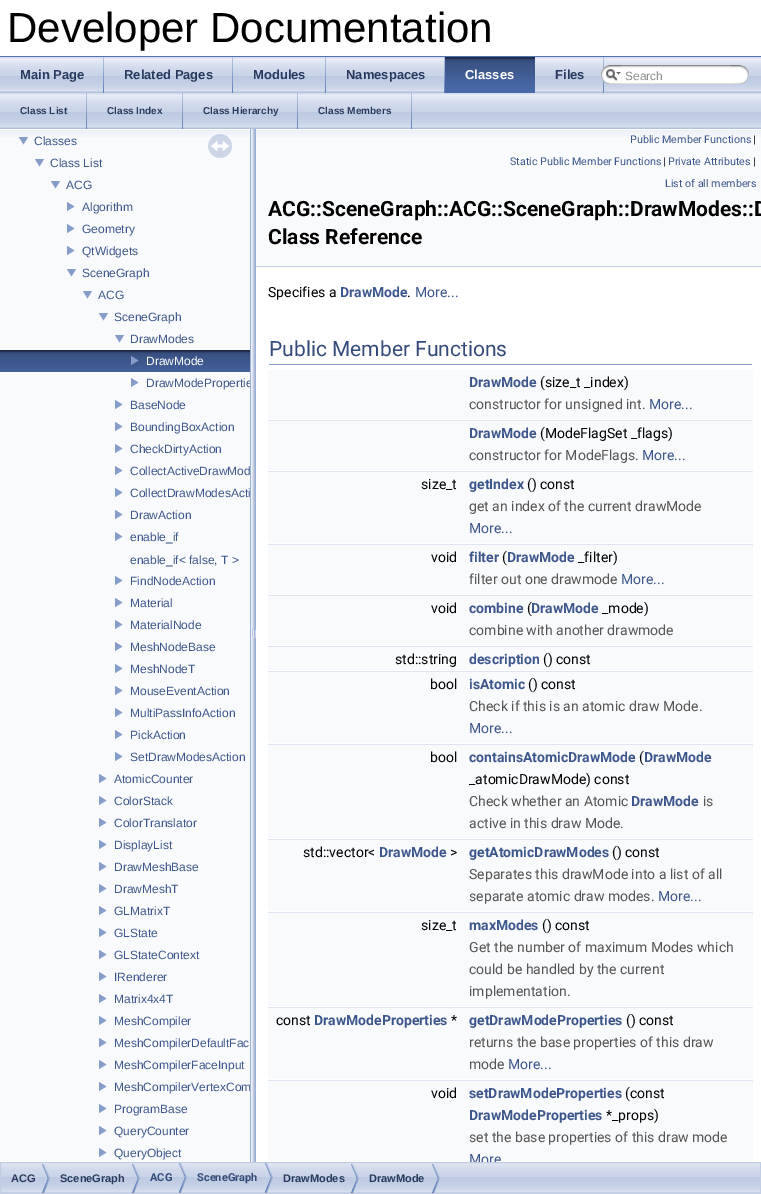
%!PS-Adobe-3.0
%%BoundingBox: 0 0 761 1194
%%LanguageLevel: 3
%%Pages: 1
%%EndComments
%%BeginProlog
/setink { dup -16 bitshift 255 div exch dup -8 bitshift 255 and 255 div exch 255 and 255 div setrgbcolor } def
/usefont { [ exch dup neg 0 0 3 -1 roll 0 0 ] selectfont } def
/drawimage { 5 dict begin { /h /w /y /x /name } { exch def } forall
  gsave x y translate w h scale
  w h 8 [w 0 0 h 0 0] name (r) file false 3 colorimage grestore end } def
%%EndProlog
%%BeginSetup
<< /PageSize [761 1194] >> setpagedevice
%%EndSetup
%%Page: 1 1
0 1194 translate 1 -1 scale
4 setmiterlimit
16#FFFFFF setink
0 0 761 1194 rectfill
16#5373B4 setink
0 56 761 1 rectfill
/LiberationSans-Regular 42 usefont
16#000000 setink
7 42 moveto (Developer Documentation) show
(img1.raw) 0 57 761 36 drawimage
(img2.raw) 103 57 1 36 drawimage
/LiberationSans-Bold 13 usefont
16#283A5D setink
20 79 moveto (Main Page) show
(img2.raw) 232 57 1 36 drawimage
124 79 moveto (Related Pages) show
(img2.raw) 325 57 1 36 drawimage
253 79 moveto (Modules) show
(img2.raw) 444 57 1 36 drawimage
346 79 moveto (Namespaces) show
(img3.raw) 445 57 90 36 drawimage
16#FFFFFF setink
465 79 moveto (Classes) show
(img2.raw) 603 57 1 36 drawimage
16#283A5D setink
555 79 moveto (Files) show
(img4.raw) 601 65 20 19 drawimage
(img5.raw) 606 69 15 12 drawimage
(img6.raw) 621 65 110 19 drawimage
/LiberationSans-Regular 12 usefont
16#909090 setink
625 80 moveto (Search) show
(img7.raw) 731 65 18 19 drawimage
(img1.raw) 0 93 761 36 drawimage
(img2.raw) 86 93 1 36 drawimage
/LiberationSans-Bold 10 usefont
16#283A5D setink
20 114 moveto (Class List) show
(img2.raw) 182 93 1 36 drawimage
107 114 moveto (Class Index) show
(img2.raw) 297 93 1 36 drawimage
203 114 moveto (Class Hierarchy) show
(img2.raw) 411 93 1 36 drawimage
318 114 moveto (Class Members) show
16#F9FAFC setink
0 137 250 1025 rectfill
(img8.raw) 0 129 250 8 drawimage
(img9.raw) 208 134 24 24 drawimage
(img10.raw) 19 137 9 8 drawimage
/LiberationSans-Regular 12 usefont
16#3D578C setink
34 145 moveto (Classes) show
(img10.raw) 35 159 9 8 drawimage
50 167 moveto (Class List) show
(img10.raw) 51 181 9 8 drawimage
66 189 moveto (ACG) show
(img11.raw) 67 202 8 9 drawimage
82 211 moveto (Algorithm) show
(img11.raw) 67 224 8 9 drawimage
82 233 moveto (Geometry) show
(img11.raw) 67 246 8 9 drawimage
82 255 moveto (QtWidgets) show
(img10.raw) 67 269 9 8 drawimage
82 277 moveto (SceneGraph) show
(img10.raw) 83 291 9 8 drawimage
98 299 moveto (ACG) show
(img10.raw) 99 313 9 8 drawimage
114 321 moveto (SceneGraph) show
(img10.raw) 115 335 9 8 drawimage
130 343 moveto (DrawModes) show
(img12.raw) 0 350 250 22 drawimage
(img13.raw) 131 356 8 9 drawimage
16#FFFFFF setink
146 365 moveto (DrawMode) show
(img11.raw) 131 378 8 9 drawimage
16#3D578C setink
146 387 moveto (DrawModePropertie) show
(img11.raw) 115 400 8 9 drawimage
130 409 moveto (BaseNode) show
(img11.raw) 115 422 8 9 drawimage
130 431 moveto (BoundingBoxAction) show
(img11.raw) 115 444 8 9 drawimage
130 453 moveto (CheckDirtyAction) show
(img11.raw) 115 466 8 9 drawimage
130 475 moveto (CollectActiveDrawMod) show
(img11.raw) 115 488 8 9 drawimage
130 497 moveto (CollectDrawModesActi) show
(img11.raw) 115 510 8 9 drawimage
130 519 moveto (DrawAction) show
(img11.raw) 115 532 8 9 drawimage
130 541 moveto (enable_if) show
130 564 moveto (enable_if< false, T >) show
(img11.raw) 115 576 8 9 drawimage
130 585 moveto (FindNodeAction) show
(img11.raw) 115 598 8 9 drawimage
130 607 moveto (Material) show
(img11.raw) 115 620 8 9 drawimage
130 629 moveto (MaterialNode) show
(img11.raw) 115 642 8 9 drawimage
130 651 moveto (MeshNodeBase) show
(img11.raw) 115 664 8 9 drawimage
130 673 moveto (MeshNodeT) show
(img11.raw) 115 686 8 9 drawimage
130 695 moveto (MouseEventAction) show
(img11.raw) 115 708 8 9 drawimage
130 717 moveto (MultiPassInfoAction) show
(img11.raw) 115 730 8 9 drawimage
130 739 moveto (PickAction) show
(img11.raw) 115 752 8 9 drawimage
130 761 moveto (SetDrawModesAction) show
(img11.raw) 99 774 8 9 drawimage
114 783 moveto (AtomicCounter) show
(img11.raw) 99 796 8 9 drawimage
114 805 moveto (ColorStack) show
(img11.raw) 99 818 8 9 drawimage
114 827 moveto (ColorTranslator) show
(img11.raw) 99 840 8 9 drawimage
114 849 moveto (DisplayList) show
(img11.raw) 99 862 8 9 drawimage
114 871 moveto (DrawMeshBase) show
(img11.raw) 99 884 8 9 drawimage
114 893 moveto (DrawMeshT) show
(img11.raw) 99 906 8 9 drawimage
114 915 moveto (GLMatrixT) show
(img11.raw) 99 928 8 9 drawimage
114 937 moveto (GLState) show
(img11.raw) 99 950 8 9 drawimage
114 959 moveto (GLStateContext) show
(img11.raw) 99 972 8 9 drawimage
114 981 moveto (IRenderer) show
(img11.raw) 99 994 8 9 drawimage
114 1003 moveto (Matrix4x4T) show
(img11.raw) 99 1016 8 9 drawimage
114 1025 moveto (MeshCompiler) show
(img11.raw) 99 1038 8 9 drawimage
114 1047 moveto (MeshCompilerDefaultFac) show
(img11.raw) 99 1060 8 9 drawimage
114 1069 moveto (MeshCompilerFaceInput) show
(img11.raw) 99 1082 8 9 drawimage
114 1091 moveto (MeshCompilerVertexCom) show
(img11.raw) 99 1104 8 9 drawimage
114 1113 moveto (ProgramBase) show
(img11.raw) 99 1126 8 9 drawimage
114 1135 moveto (QueryCounter) show
(img11.raw) 99 1148 8 9 drawimage
114 1157 moveto (QueryObject) show
(img14.raw) 250 129 6 1033 drawimage
16#F9FAFC setink
256 137 505 129 rectfill
(img15.raw) 256 129 505 8 drawimage
16#C4CFE5 setink
256 266 505 1 rectfill
/Roboto-Regular 10.7 usefont
16#3D578C setink
630 143 moveto (Public Member Functions) show
16#000000 setink
753 143 moveto (|) show
16#3D578C setink
510 165 moveto (Static Public Member Functions) show
16#000000 setink
663 165 moveto (|) show
16#3D578C setink
668 165 moveto (Private Attributes) show
16#000000 setink
753 165 moveto (|) show
16#3D578C setink
665 187 moveto (List of all members) show
/Roboto-Bold 21 usefont
16#000000 setink
268 216 moveto (ACG::SceneGraph::ACG::SceneGraph::DrawModes::D) show
268 244 moveto (Class Reference) show
/Roboto-Regular 14 usefont
268 297 moveto (Specifies a) show
/Roboto-Bold 14 usefont
16#3D578C setink
340 297 moveto (DrawMode) show
/Roboto-Regular 14 usefont
16#000000 setink
407 297 moveto (.) show
16#3D578C setink
415 297 moveto (More...) show
16#879ECB setink
269 364 483 1 rectfill
/Roboto-Regular 21 usefont
16#354C7B setink
269 356 moveto (Public Member Functions) show
16#F9FAFC setink
268 370 485 23 rectfill
/Roboto-Bold 14 usefont
16#3D578C setink
469 387 moveto (DrawMode) show
/Roboto-Regular 14 usefont
16#000000 setink
540 387 moveto (\(size_t _index\)) show
16#F9FAFC setink
268 393 485 26 rectfill
16#555555 setink
469 409 moveto (constructor for unsigned int.) show
16#3D578C setink
649 409 moveto (More...) show
16#DEE4F0 setink
268 420 485 1 rectfill
16#F9FAFC setink
268 421 485 23 rectfill
/Roboto-Bold 14 usefont
16#3D578C setink
469 438 moveto (DrawMode) show
/Roboto-Regular 14 usefont
16#000000 setink
540 438 moveto (\(ModeFlagSet _flags\)) show
16#F9FAFC setink
268 444 485 26 rectfill
16#555555 setink
469 460 moveto (constructor for ModeFlags.) show
16#3D578C setink
642 460 moveto (More...) show
16#DEE4F0 setink
268 471 485 1 rectfill
16#F9FAFC setink
268 472 485 23 rectfill
16#000000 setink
421 489 moveto (size_t) show
/Roboto-Bold 14 usefont
16#3D578C setink
469 489 moveto (getIndex) show
/Roboto-Regular 14 usefont
16#000000 setink
527 489 moveto (\(\) const) show
16#F9FAFC setink
268 495 485 48 rectfill
16#555555 setink
469 511 moveto (get an index of the current drawMode) show
16#3D578C setink
469 533 moveto (More...) show
16#DEE4F0 setink
268 544 485 1 rectfill
16#F9FAFC setink
268 545 485 23 rectfill
16#000000 setink
431 562 moveto (void) show
/Roboto-Bold 14 usefont
16#3D578C setink
469 562 moveto (filter) show
/Roboto-Regular 14 usefont
16#000000 setink
502 562 moveto (\() show
/Roboto-Bold 14 usefont
16#3D578C setink
507 562 moveto (DrawMode) show
/Roboto-Regular 14 usefont
16#000000 setink
578 562 moveto (_filter\)) show
16#F9FAFC setink
268 568 485 26 rectfill
16#555555 setink
469 584 moveto (filter out one drawmode) show
16#3D578C setink
621 584 moveto (More...) show
16#DEE4F0 setink
268 595 485 1 rectfill
16#F9FAFC setink
268 596 485 23 rectfill
16#000000 setink
431 613 moveto (void) show
/Roboto-Bold 14 usefont
16#3D578C setink
469 613 moveto (combine) show
/Roboto-Regular 14 usefont
16#000000 setink
527 613 moveto (\() show
/Roboto-Bold 14 usefont
16#3D578C setink
531 613 moveto (DrawMode) show
/Roboto-Regular 14 usefont
16#000000 setink
602 613 moveto (_mode\)) show
16#F9FAFC setink
268 619 485 26 rectfill
16#555555 setink
469 635 moveto (combine with another drawmode) show
16#DEE4F0 setink
268 646 485 1 rectfill
16#F9FAFC setink
268 647 485 23 rectfill
16#000000 setink
395 664 moveto (std::string) show
/Roboto-Bold 14 usefont
16#3D578C setink
469 664 moveto (description) show
/Roboto-Regular 14 usefont
16#000000 setink
543 664 moveto (\(\) const) show
16#DEE4F0 setink
268 671 485 1 rectfill
16#F9FAFC setink
268 672 485 23 rectfill
16#000000 setink
430 689 moveto (bool) show
/Roboto-Bold 14 usefont
16#3D578C setink
469 689 moveto (isAtomic) show
/Roboto-Regular 14 usefont
16#000000 setink
528 689 moveto (\(\) const) show
16#F9FAFC setink
268 695 485 48 rectfill
16#555555 setink
469 711 moveto (Check if this is an atomic draw Mode.) show
16#3D578C setink
469 733 moveto (More...) show
16#DEE4F0 setink
268 744 485 1 rectfill
16#F9FAFC setink
268 745 485 45 rectfill
16#000000 setink
430 762 moveto (bool) show
/Roboto-Bold 14 usefont
16#3D578C setink
469 762 moveto (containsAtomicDrawMode) show
/Roboto-Regular 14 usefont
16#000000 setink
639 762 moveto (\() show
/Roboto-Bold 14 usefont
16#3D578C setink
644 762 moveto (DrawMode) show
/Roboto-Regular 14 usefont
16#000000 setink
469 784 moveto (_atomicDrawMode\) const) show
16#F9FAFC setink
268 790 485 48 rectfill
16#555555 setink
469 806 moveto (Check whether an Atomic) show
/Roboto-Bold 14 usefont
16#3D578C setink
631 806 moveto (DrawMode) show
/Roboto-Regular 14 usefont
16#555555 setink
703 806 moveto (is) show
469 828 moveto (active in this draw Mode.) show
16#DEE4F0 setink
268 839 485 1 rectfill
16#F9FAFC setink
268 840 485 23 rectfill
16#000000 setink
303 857 moveto (std::vector<) show
/Roboto-Bold 14 usefont
16#3D578C setink
379 857 moveto (DrawMode) show
/Roboto-Regular 14 usefont
16#000000 setink
450 857 moveto (>) show
/Roboto-Bold 14 usefont
16#3D578C setink
469 857 moveto (getAtomicDrawModes) show
/Roboto-Regular 14 usefont
16#000000 setink
612 857 moveto (\(\) const) show
16#F9FAFC setink
268 863 485 48 rectfill
16#555555 setink
469 879 moveto (Separates this drawMode into a list of all) show
469 901 moveto (separate atomic draw modes.) show
16#3D578C setink
658 901 moveto (More...) show
16#DEE4F0 setink
268 912 485 1 rectfill
16#F9FAFC setink
268 913 485 23 rectfill
16#000000 setink
421 930 moveto (size_t) show
/Roboto-Bold 14 usefont
16#3D578C setink
469 930 moveto (maxModes) show
/Roboto-Regular 14 usefont
16#000000 setink
542 930 moveto (\(\) const) show
16#F9FAFC setink
268 936 485 70 rectfill
16#555555 setink
[
    [(Get the number of maximum Modes which) 469 952]
    [(could be handled by the current) 469 974]
    [(implementation.) 469 996]
] { aload pop moveto show } forall
16#DEE4F0 setink
268 1007 485 1 rectfill
16#F9FAFC setink
268 1008 485 23 rectfill
16#000000 setink
276 1025 moveto (const) show
/Roboto-Bold 14 usefont
16#3D578C setink
314 1025 moveto (DrawModeProperties) show
/Roboto-Regular 14 usefont
16#000000 setink
451 1025 moveto (*) show
/Roboto-Bold 14 usefont
16#3D578C setink
469 1025 moveto (getDrawModeProperties) show
/Roboto-Regular 14 usefont
16#000000 setink
626 1025 moveto (\(\) const) show
16#F9FAFC setink
268 1031 485 48 rectfill
16#555555 setink
469 1047 moveto (returns the base properties of this draw) show
469 1069 moveto (mode) show
16#3D578C setink
508 1069 moveto (More...) show
16#DEE4F0 setink
268 1080 485 1 rectfill
16#F9FAFC setink
268 1081 485 45 rectfill
16#000000 setink
431 1098 moveto (void) show
/Roboto-Bold 14 usefont
16#3D578C setink
469 1098 moveto (setDrawModeProperties) show
/Roboto-Regular 14 usefont
16#000000 setink
625 1098 moveto (\(const) show
/Roboto-Bold 14 usefont
16#3D578C setink
469 1120 moveto (DrawModeProperties) show
/Roboto-Regular 14 usefont
16#000000 setink
606 1120 moveto (*_props\)) show
16#F9FAFC setink
268 1126 485 36 rectfill
16#555555 setink
469 1142 moveto (set the base properties of this draw mode) show
16#3D578C setink
469 1164 moveto (More) show
(img16.raw) 1 1163 759 30 drawimage
16#C2CDE4 setink
0.5 1162.5 760 31 rectstroke
(img17.raw) 42 1164 8 29 drawimage
/LiberationSans-Bold 11 usefont
16#283A5D setink
11 1182 moveto (ACG) show
(img17.raw) 132 1164 8 29 drawimage
60 1182 moveto (SceneGraph) show
(img18.raw) 179 1163 8 30 drawimage
/Roboto-Bold 11 usefont
16#354C7B setink
150 1181 moveto (ACG) show
(img18.raw) 265 1163 8 30 drawimage
197 1181 moveto (SceneGraph) show
(img17.raw) 351 1164 8 29 drawimage
/LiberationSans-Bold 11 usefont
16#283A5D setink
283 1182 moveto (DrawModes) show
(img17.raw) 432 1164 8 29 drawimage
369 1182 moveto (DrawMode) show
showpage
%%EOF
